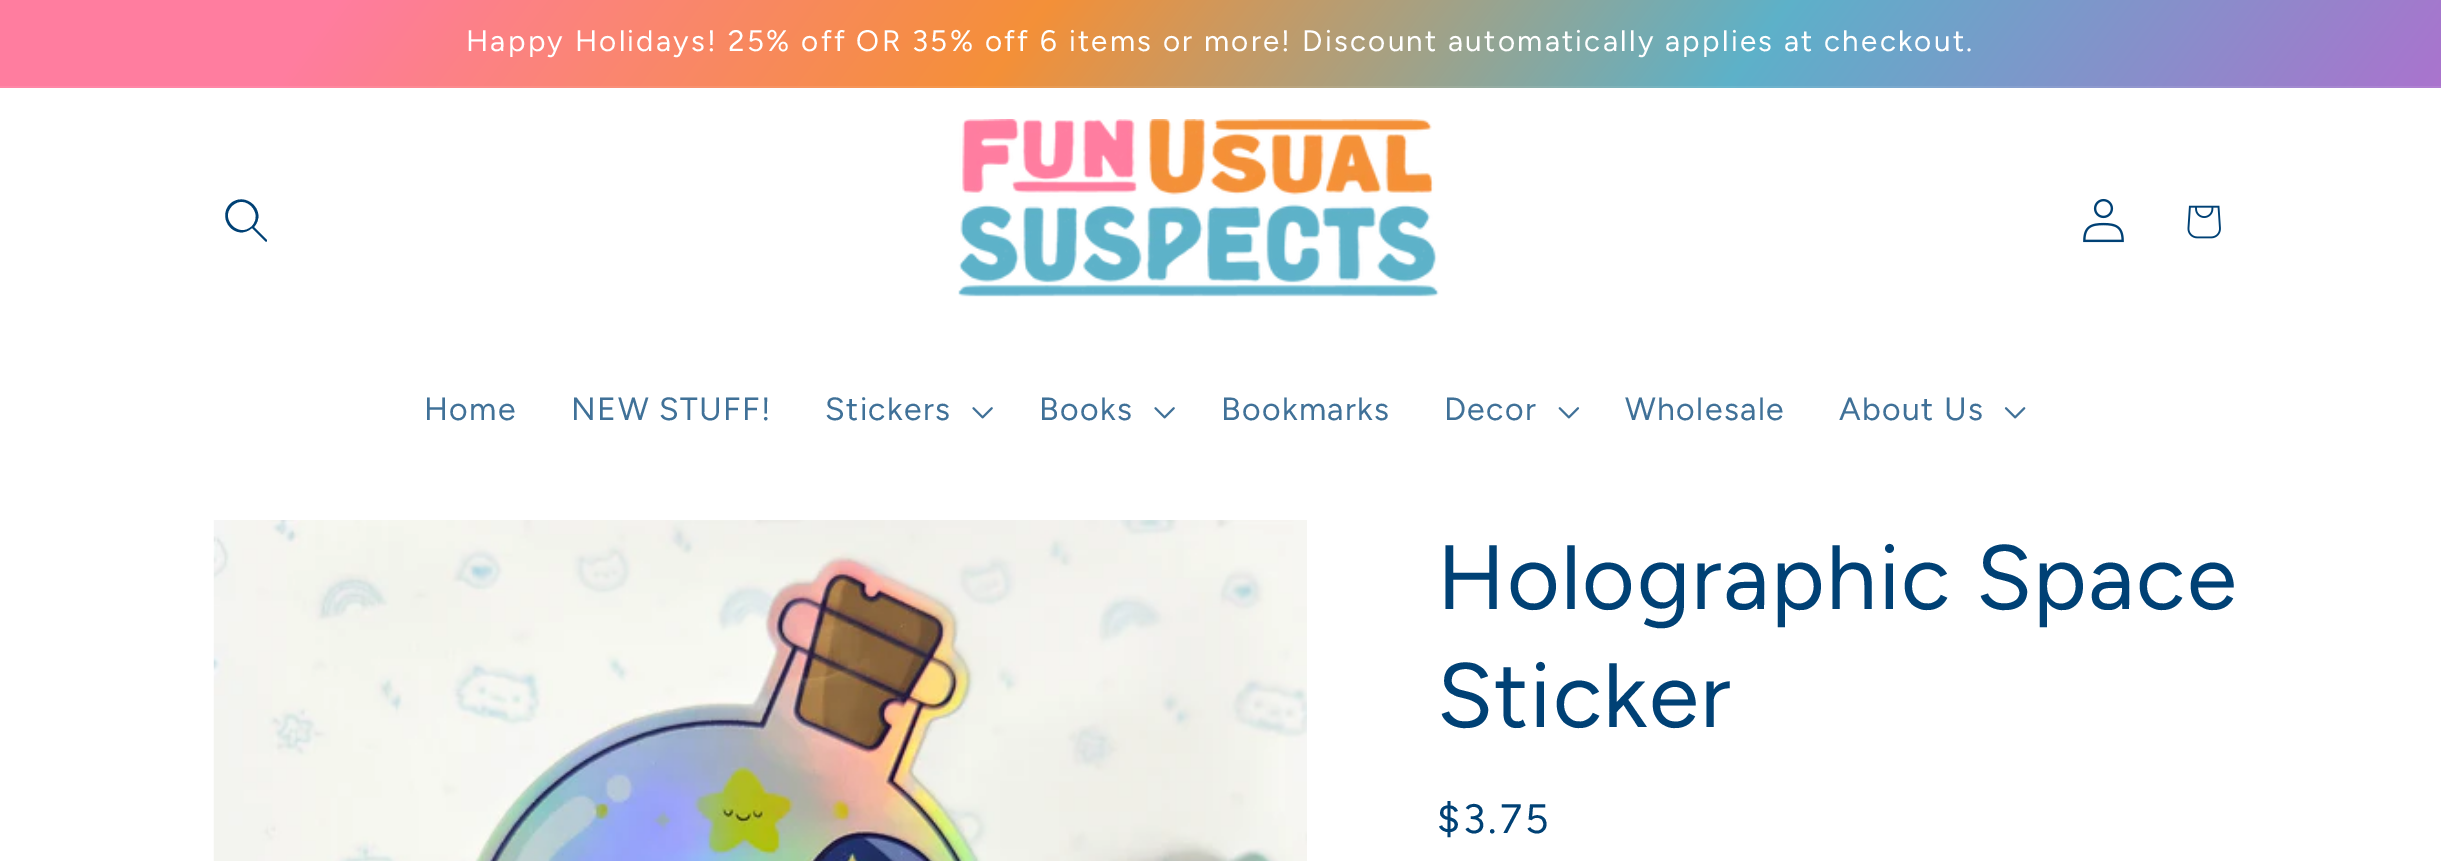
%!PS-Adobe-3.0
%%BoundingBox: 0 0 2441 861
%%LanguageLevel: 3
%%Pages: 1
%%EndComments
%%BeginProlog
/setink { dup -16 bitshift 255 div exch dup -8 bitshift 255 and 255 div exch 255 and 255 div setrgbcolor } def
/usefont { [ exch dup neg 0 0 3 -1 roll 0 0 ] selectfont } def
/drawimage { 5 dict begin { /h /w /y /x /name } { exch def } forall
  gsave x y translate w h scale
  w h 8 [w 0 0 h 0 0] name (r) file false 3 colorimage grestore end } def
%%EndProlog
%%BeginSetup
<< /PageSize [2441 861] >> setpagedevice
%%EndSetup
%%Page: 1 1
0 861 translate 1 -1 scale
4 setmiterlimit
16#FFFFFF setink
0 0 2441 861 rectfill
gsave 0 0 moveto 2441 0 lineto 2441 86 lineto 0 86 lineto closepath clip newpath
<< /ShadingType 2 /ColorSpace /DeviceRGB /Coords [235 -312 2206 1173] /Extend [true true] /Function << /FunctionType 3 /Domain [0 1] /Functions [<< /FunctionType 2 /Domain [0 1] /C0 [1 0.49 0.624] /C1 [1 0.49 0.624] /N 1 >> << /FunctionType 2 /Domain [0 1] /C0 [1 0.49 0.624] /C1 [0.957 0.565 0.22] /N 1 >> << /FunctionType 2 /Domain [0 1] /C0 [0.957 0.565 0.22] /C1 [0.365 0.694 0.788] /N 1 >> << /FunctionType 2 /Domain [0 1] /C0 [0.365 0.694 0.788] /C1 [0.667 0.455 0.804] /N 1 >> << /FunctionType 2 /Domain [0 1] /C0 [0.667 0.455 0.804] /C1 [0.667 0.455 0.804] /N 1 >>] /Bounds [0.11 0.34 0.58 0.81] /Encode [0 1 0 1 0 1 0 1 0 1] >> >> shfill grestore
gsave 0 86 moveto 2441 86 lineto 2441 88 lineto 0 88 lineto closepath clip newpath
<< /ShadingType 2 /ColorSpace /DeviceRGB /Coords [235 -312 2206 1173] /Extend [true true] /Function << /FunctionType 3 /Domain [0 1] /Functions [<< /FunctionType 2 /Domain [0 1] /C0 [1 0.529 0.655] /C1 [1 0.529 0.655] /N 1 >> << /FunctionType 2 /Domain [0 1] /C0 [1 0.529 0.655] /C1 [0.961 0.6 0.282] /N 1 >> << /FunctionType 2 /Domain [0 1] /C0 [0.961 0.6 0.282] /C1 [0.416 0.718 0.804] /N 1 >> << /FunctionType 2 /Domain [0 1] /C0 [0.416 0.718 0.804] /C1 [0.694 0.498 0.82] /N 1 >> << /FunctionType 2 /Domain [0 1] /C0 [0.694 0.498 0.82] /C1 [0.694 0.498 0.82] /N 1 >>] /Bounds [0.11 0.34 0.58 0.81] /Encode [0 1 0 1 0 1 0 1 0 1] >> >> shfill grestore
/Figtree-Regular 29.57 usefont
466 51 moveto 2.27 0 (Happy Holidays! 25% off OR 35% off 6 items or more! Discount automatically applies at checkout.) ashow
16#004175 setink
252 226 moveto 239 239 219 219 232 206 curveto 245 193 264 213 252 226 curveto 252 228 moveto 236 242 216 219 230 204 curveto 245 190 268 211 254 227 curveto 267 240 lineto 267 242 266 242 265 241 curveto closepath eofill
(img1.raw) 958 119 481 178 drawimage
(img2.raw) 2083 198 41 45 drawimage
(img3.raw) 2187 205 34 34 drawimage
/Figtree-Regular 32 usefont
16#407198 setink
424 420 moveto 1.4 0 (Home) ashow
571 420 moveto 1.4 0 (NEW STUFF!) ashow
825 420 moveto 1.4 0 (Stickers) ashow
(img4.raw) 972 407 21 12 drawimage
1039 420 moveto 1.4 0 (Books) ashow
(img4.raw) 1154 407 21 12 drawimage
1221 420 moveto 1.4 0 (Bookmarks) ashow
1444 420 moveto 1.4 0 (Decor) ashow
(img5.raw) 1558 407 22 12 drawimage
1625 420 moveto 1.4 0 (Wholesale) ashow
1839 420 moveto 1.4 0 (About Us) ashow
(img6.raw) 2004 407 22 12 drawimage
(img7.raw) 213 520 1094 341 drawimage
/Figtree-Regular 91 usefont
16#004175 setink
1437 609 moveto 1.4 0 (Holographic Space) ashow
1437 727 moveto 1.4 0 (Sticker) ashow
/Figtree-Regular 41 usefont
1437 833 moveto 3 0 ($3.75) ashow
showpage
%%EOF
